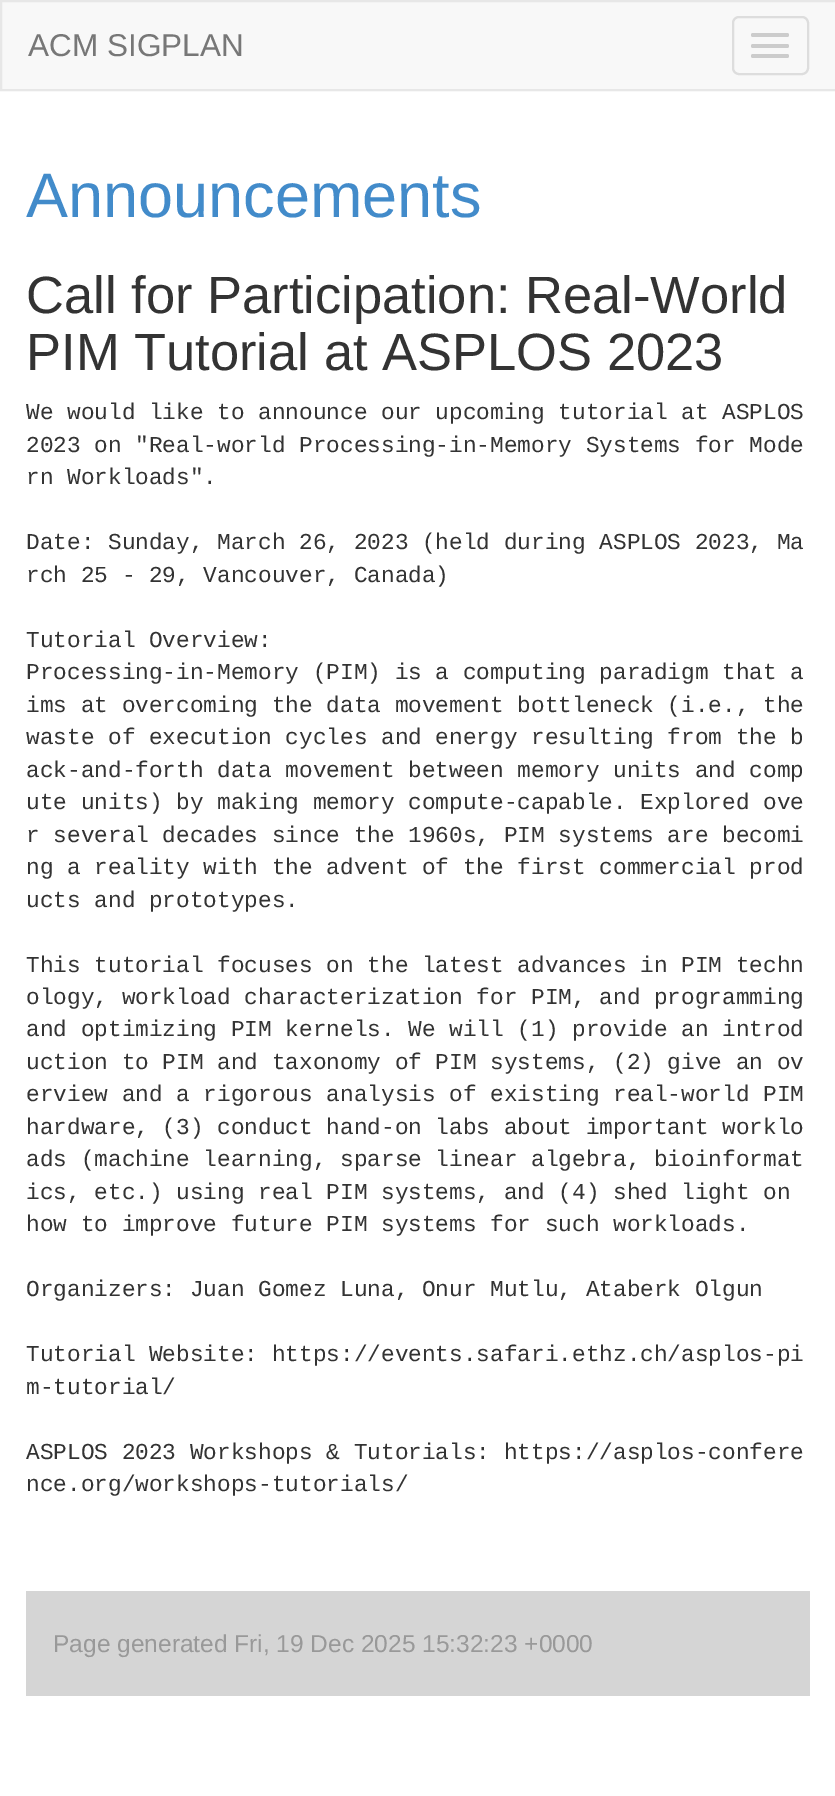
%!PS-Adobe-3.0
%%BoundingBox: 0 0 835 1796
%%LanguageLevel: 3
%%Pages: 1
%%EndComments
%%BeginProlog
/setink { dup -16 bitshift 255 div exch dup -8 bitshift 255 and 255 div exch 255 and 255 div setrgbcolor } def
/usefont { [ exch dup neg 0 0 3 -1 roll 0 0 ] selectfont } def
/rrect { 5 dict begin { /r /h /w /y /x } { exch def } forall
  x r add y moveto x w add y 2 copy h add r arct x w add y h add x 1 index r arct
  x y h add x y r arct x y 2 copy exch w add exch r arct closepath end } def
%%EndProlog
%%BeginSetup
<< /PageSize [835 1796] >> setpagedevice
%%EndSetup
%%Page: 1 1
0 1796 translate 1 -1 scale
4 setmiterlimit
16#FFFFFF setink
0 0 835 1796 rectfill
16#F8F8F8 setink
1 1 moveto 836 1 lineto 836 90 lineto 1 90 lineto closepath gsave fill grestore
16#E7E7E7 setink
2 setlinewidth
stroke
/LiberationSans-Regular 31.5 usefont
16#777777 setink
28 56 moveto (ACM SIGPLAN) show
16#DDDDDD setink
733 17 75 57 6 rrect stroke
16#CCCCCC setink
751 33 38 4 2 rrect fill
751 44 38 4 2 rrect fill
751 54 38 4 2 rrect fill
/LiberationSans-Regular 63 usefont
16#428BCA setink
26 217 moveto (Announcements) show
/LiberationSans-Regular 52.5 usefont
16#333333 setink
26 313 moveto (Call for Participation: Real-World) show
26 370 moveto (PIM Tutorial at ASPLOS 2023) show
/LiberationMono-Regular 22.75 usefont
[
    [(We would like to announce our upcoming tutorial at ASPLOS) 26 419]
    [(2023 on "Real-world Processing-in-Memory Systems for Mode) 26 452]
    [(rn Workloads".) 26 484]
    [(Date: Sunday, March 26, 2023 \(held during ASPLOS 2023, Ma) 26 549]
    [(rch 25 - 29, Vancouver, Canada\)) 26 582]
    [(Tutorial Overview:) 26 647]
    [(Processing-in-Memory \(PIM\) is a computing paradigm that a) 26 679]
    [(ims at overcoming the data movement bottleneck \(i.e., the) 26 712]
    [(waste of execution cycles and energy resulting from the b) 26 744]
    [(ack-and-forth data movement between memory units and comp) 26 777]
    [(ute units\) by making memory compute-capable. Explored ove) 26 809]
    [(r several decades since the 1960s, PIM systems are becomi) 26 842]
    [(ng a reality with the advent of the first commercial prod) 26 874]
    [(ucts and prototypes.) 26 907]
    [(This tutorial focuses on the latest advances in PIM techn) 26 972]
    [(ology, workload characterization for PIM, and programming) 26 1004]
    [(and optimizing PIM kernels. We will \(1\) provide an introd) 26 1036]
    [(uction to PIM and taxonomy of PIM systems, \(2\) give an ov) 26 1069]
    [(erview and a rigorous analysis of existing real-world PIM) 26 1101]
    [(hardware, \(3\) conduct hand-on labs about important worklo) 26 1134]
    [(ads \(machine learning, sparse linear algebra, bioinformat) 26 1166]
    [(ics, etc.\) using real PIM systems, and \(4\) shed light on) 26 1199]
    [(how to improve future PIM systems for such workloads.) 26 1231]
    [(Organizers: Juan Gomez Luna, Onur Mutlu, Ataberk Olgun) 26 1296]
    [(Tutorial Website: https://events.safari.ethz.ch/asplos-pi) 26 1361]
    [(m-tutorial/) 26 1394]
    [(ASPLOS 2023 Workshops & Tutorials: https://asplos-confere) 26 1459]
    [(nce.org/workshops-tutorials/) 26 1491]
] { aload pop moveto show } forall
16#D5D5D5 setink
26 1591 784 105 rectfill
/LiberationSans-Regular 24.5 usefont
16#999999 setink
53 1652 moveto (Page generated Fri, 19 Dec 2025 15:32:23 +0000) show
showpage
%%EOF
